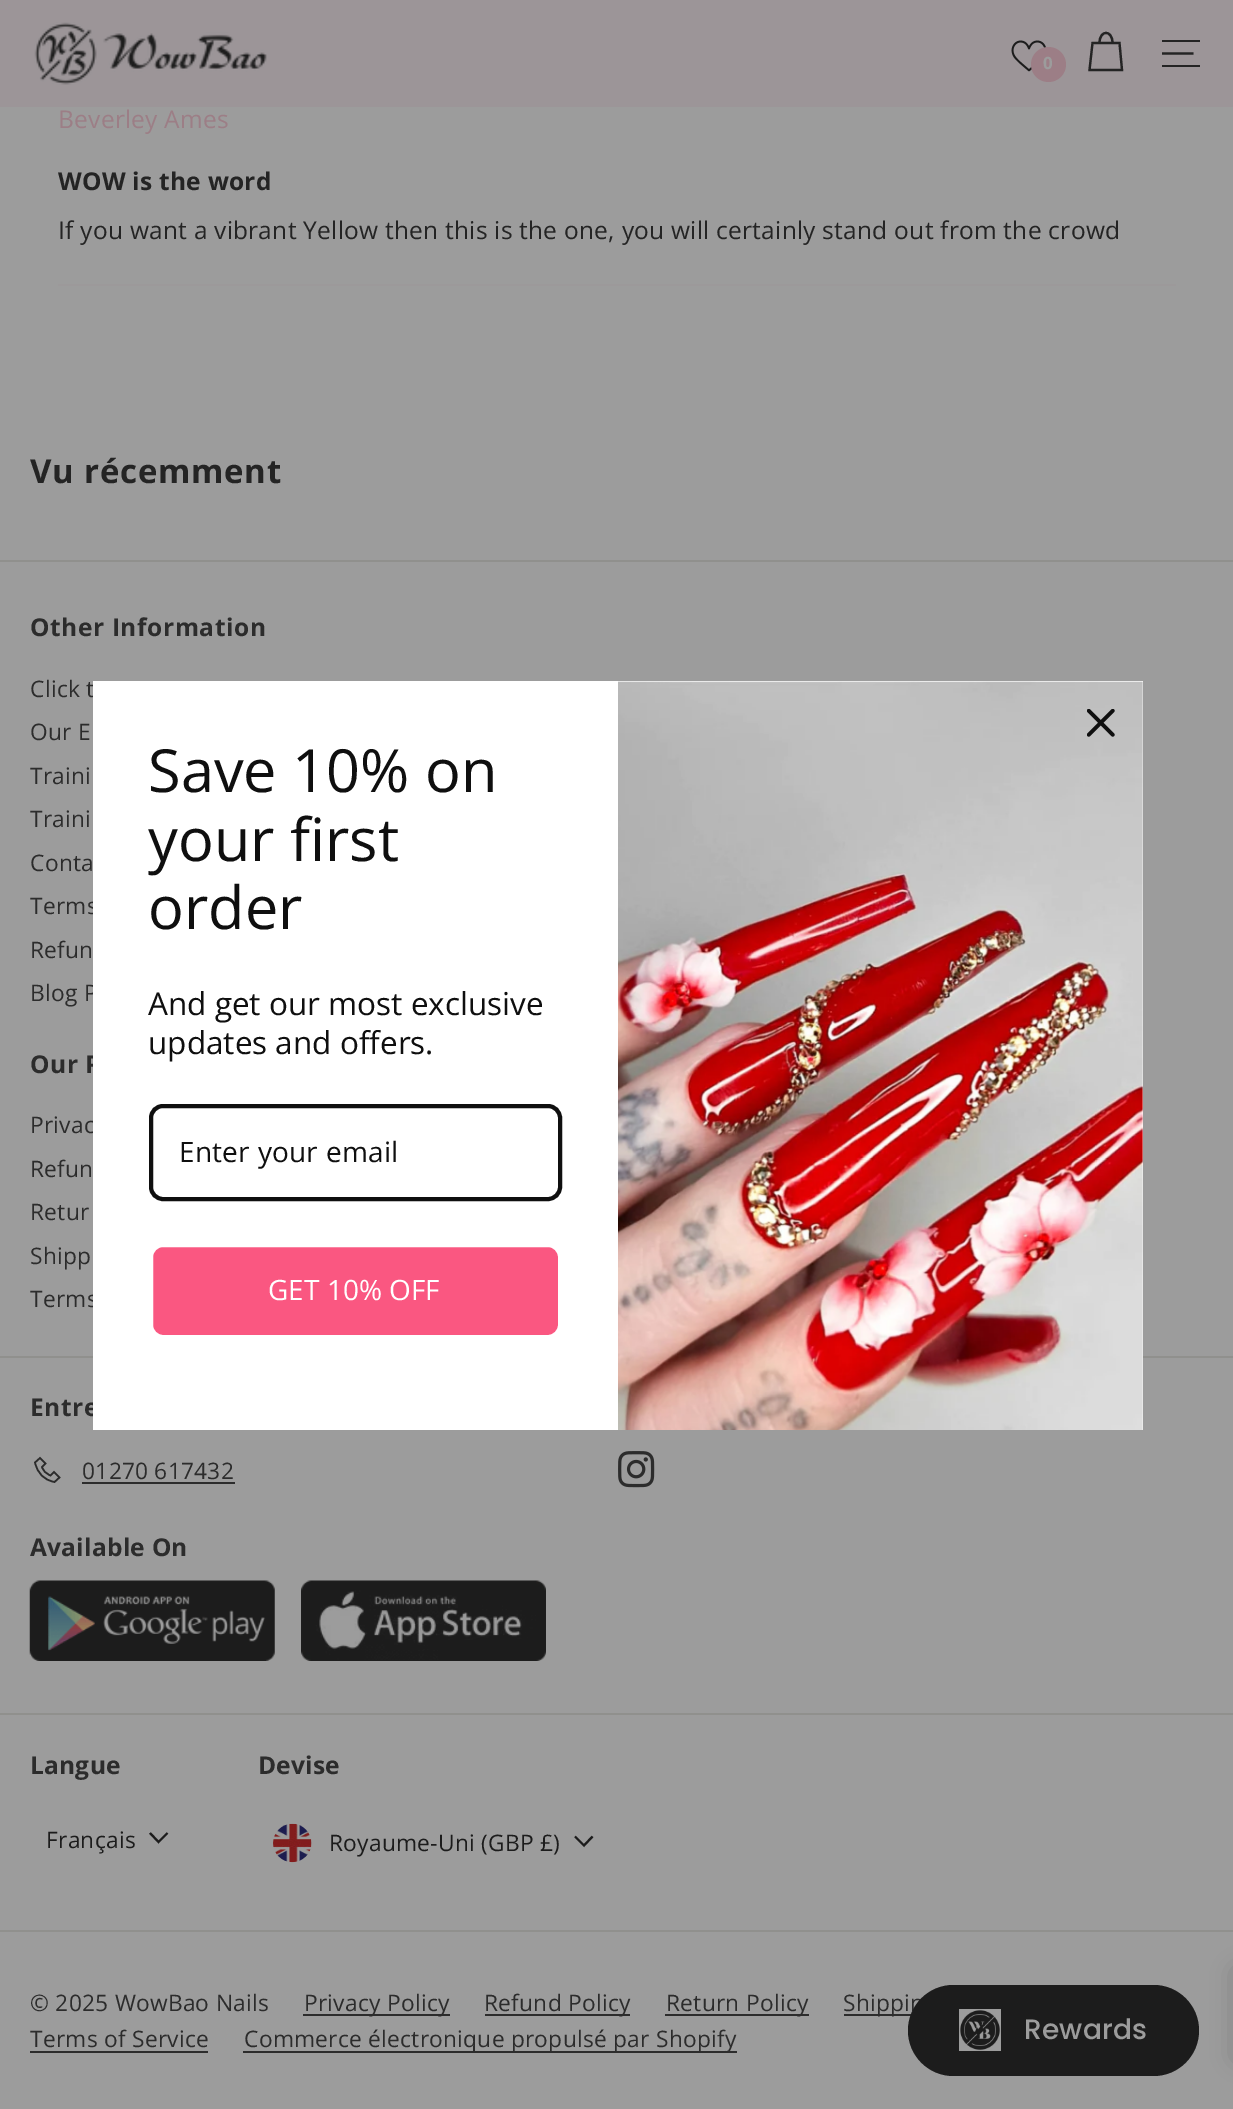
%!PS-Adobe-3.0
%%BoundingBox: 0 0 1233 2109
%%LanguageLevel: 3
%%Pages: 1
%%EndComments
%%BeginProlog
/setink { dup -16 bitshift 255 div exch dup -8 bitshift 255 and 255 div exch 255 and 255 div setrgbcolor } def
/usefont { [ exch dup neg 0 0 3 -1 roll 0 0 ] selectfont } def
/setalpha { dup .setfillconstantalpha .setstrokeconstantalpha } def
/disc { newpath 0 360 arc closepath } def
/rrect { 5 dict begin { /r /h /w /y /x } { exch def } forall
  x r add y moveto x w add y 2 copy h add r arct x w add y h add x 1 index r arct
  x y h add x y r arct x y 2 copy exch w add exch r arct closepath end } def
/softshadow { 12 dict begin { /a /b /q /h /w /y /x } { exch def } forall gsave /was 0 def
  9 -2 -9 { dup b mul 4 div /e exch def 1 sub .425 mul 2.718 exch exp 1 add a .99 .min exch div /now exch def
    1 1 now sub 1 was sub div sub setalpha /was now def
    w h .min e 2 mul add 0 gt { x e sub y e sub w e 2 mul add h e 2 mul add
      q e add b .6 mul add w h .min 2 div e add .min 0 .max rrect fill } if } for grestore end } def
/drawimage { 5 dict begin { /h /w /y /x /name } { exch def } forall
  gsave x y translate w h scale
  w h 8 [w 0 0 h 0 0] name (r) file false 3 colorimage grestore end } def
%%EndProlog
%%BeginSetup
<< /PageSize [1233 2109] /PageUsesTransparency true >> setpagedevice
%%EndSetup
%%Page: 1 1
0 .pushpdf14devicefilter
0 2109 translate 1 -1 scale
4 setmiterlimit
16#9C9C9C setink
0 0 1233 2109 rectfill
0 9 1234 107 0 12 1 softshadow
16#9C9598 setink
0 0 1233 107 rectfill
(img1.raw) 34 22 233 63 drawimage
(img2.raw) 1011 40 36 32 drawimage
16#9C7E86 setink
1048.5 64.5 17.5 disc fill
/OpenSans-Bold 17 usefont
16#9C9C9C setink
1043 69 moveto 0.25 0 (0) ashow
16#242424 setink
2.2 setlinewidth
1099.5 43 moveto 1099.5 29.5 1112.5 29.5 1112.5 43 curveto 1092.5 43 moveto 1119.5 43 lineto 1122 70 lineto 1089.5 70 lineto closepath stroke
1162 40 38 2 rectfill
1162 53.5 moveto 1193.5 53.5 lineto stroke
1162 65 38 2 rectfill
/OpenSans-Regular 24.5 usefont
16#9C7E86 setink
58 128 moveto 0.25 0 (Beverley Ames) ashow
/OpenSans-Bold 24.5 usefont
16#242424 setink
58 190 moveto 0.25 0 (WOW is the word) ashow
/OpenSans-Regular 24.5 usefont
58 239 moveto 0.25 0 (If you want a vibrant Yellow then this is the one, you will certainly stand out from the crowd) ashow
16#9C999A setink
58 284 1118 2 rectfill
/OpenSans-Bold 33 usefont
16#242424 setink
30 483 moveto 0.75 0 (Vu récemment) ashow
16#90908D setink
0 560 1233 2 rectfill
/OpenSans-Bold 24.5 usefont
16#2C2C2C setink
30 636 moveto 0.6 0 (Other Information) ashow
/OpenSans-Regular 22.75 usefont
30 697 moveto 0.25 0 (Click t) ashow
30 740 moveto 0.25 0 (Our E) ashow
30 784 moveto 0.25 0 (Traini) ashow
30 827 moveto 0.25 0 (Traini) ashow
30 871 moveto 0.25 0 (Conta) ashow
30 914 moveto 0.25 0 (Terms) ashow
30 958 moveto 0.25 0 (Refun) ashow
30 1001 moveto 0.25 0 (Blog P) ashow
/OpenSans-Bold 24.5 usefont
30 1073 moveto 0.6 0 (Our P) ashow
/OpenSans-Regular 22.75 usefont
30 1133 moveto 0.25 0 (Privac) ashow
30 1177 moveto 0.25 0 (Refun) ashow
30 1220 moveto 0.25 0 (Retur) ashow
30 1264 moveto 0.25 0 (Shipp) ashow
30 1307 moveto 0.25 0 (Terms) ashow
16#90908D setink
0 1356 1233 2 rectfill
/OpenSans-Bold 24.5 usefont
16#2C2C2C setink
30 1416 moveto 0.6 0 (Entre) ashow
1.6 setlinewidth
40 1458 moveto 45.5 1463.5 lineto 42 1467 lineto 43 1470.5 45.5 1473.5 50.5 1475.5 curveto 54 1472 lineto 59.5 1477.5 lineto 54.5 1482 lineto 44 1480 37.5 1473.5 35 1462.5 curveto closepath stroke
/OpenSans-Regular 22.75 usefont
82 1479 moveto 0.25 0 (01270 617432) ashow
82 1482 153 2 rectfill
(img3.raw) 618 1451 37 37 drawimage
/OpenSans-Bold 24.5 usefont
30 1556 moveto 0.25 0 (Available On) ashow
(img4.raw) 29 1580 246 81 drawimage
(img5.raw) 301 1580 245 81 drawimage
16#90908D setink
0 1713 1233 2 rectfill
16#2C2C2C setink
30 1774 moveto 0.25 0 (Langue) ashow
/OpenSans-Regular 22.75 usefont
16#1C1C1C setink
46 1848 moveto 0.25 0 (Français) ashow
2.1 setlinewidth
150 1833 moveto 158.5 1842 lineto 167.5 1833 lineto stroke
/OpenSans-Bold 24.5 usefont
16#2C2C2C setink
258 1774 moveto 0.25 0 (Devise) ashow
(img6.raw) 273 1823 39 40 drawimage
/OpenSans-Regular 22.75 usefont
16#1C1C1C setink
329 1851 moveto 0.25 0 (Royaume-Uni \(GBP £\)) ashow
575 1836.5 moveto 584 1845.5 lineto 592.5 1836.5 lineto stroke
16#90908D setink
0 1930 1233 2 rectfill
16#2C2C2C setink
30 2011 moveto 0.25 0 (© 2025 WowBao Nails) ashow
303 2014 147 2 rectfill
304 2011 moveto 0.25 0 (Privacy Policy) ashow
485 2014 145 2 rectfill
484 2011 moveto 0.25 0 (Refund Policy) ashow
665 2014 144 2 rectfill
666 2011 moveto 0.25 0 (Return Policy) ashow
844 2014 68 2 rectfill
843 2011 moveto 0.25 0 (Shippin) ashow
30 2047 moveto 0.25 0 (Terms of Service) ashow
30 2051 178 2 rectfill
243 2051 494 2 rectfill
244 2047 moveto 0.25 0 (Commerce électronique propulsé par Shopify) ashow
16#FFFFFF setink
1142 681 1 749 rectfill
(img8.raw) 618 681 525 749 drawimage
(img7.raw) 1087 709 28 28 drawimage
93 681 525 749 rectfill
/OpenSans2-Regular 59.5 usefont
16#0F0F0F setink
[
    [(Save 10% on) 148 792]
    [(your first) 148 861]
    [(order) 148 929]
] { aload pop moveto show } forall
/OpenSans2-Regular 31.5 usefont
148 1015 moveto (And get our most exclusive) show
148 1054 moveto (updates and offers.) show
4 setlinewidth
151 1106 409 93 12 rrect stroke
/OpenSans2-Regular 28 usefont
179 1162 moveto 0.25 0 (Enter your email) ashow
16#FA5781 setink
151 1245 409 92 12 rrect gsave fill grestore
16#FFFFFF setink
stroke
268 1300 moveto (GET 10% OFF) show
16#1C1C1C setink
908 1985 291 91 45.5 rrect fill
(img9.raw) 959 2009 42 42 drawimage
/Poppins-Medium 28 usefont
16#9C9C9C setink
1024 2039 moveto 0.25 0 (Rewards) ashow
16#575757 setink
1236 1971 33 87 0 12 0.5 softshadow
.poppdf14devicefilter showpage
%%EOF
